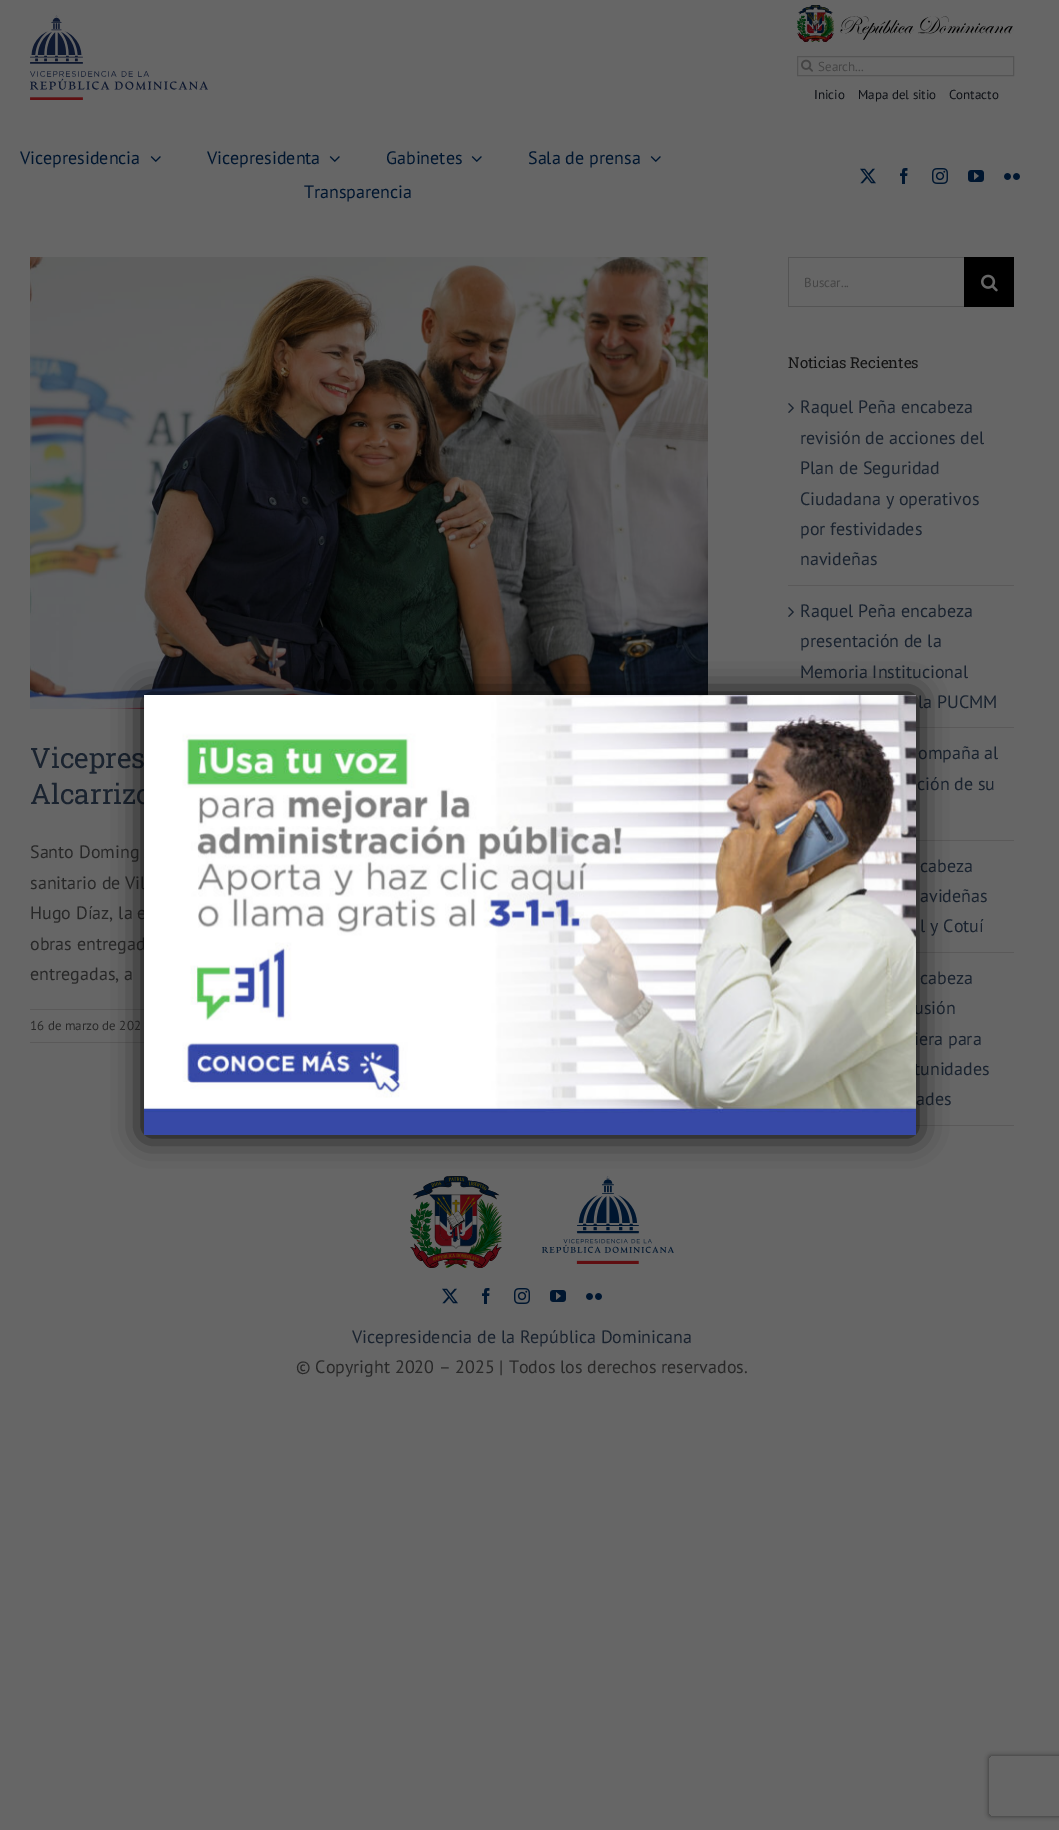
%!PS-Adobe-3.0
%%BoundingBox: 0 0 1059 1830
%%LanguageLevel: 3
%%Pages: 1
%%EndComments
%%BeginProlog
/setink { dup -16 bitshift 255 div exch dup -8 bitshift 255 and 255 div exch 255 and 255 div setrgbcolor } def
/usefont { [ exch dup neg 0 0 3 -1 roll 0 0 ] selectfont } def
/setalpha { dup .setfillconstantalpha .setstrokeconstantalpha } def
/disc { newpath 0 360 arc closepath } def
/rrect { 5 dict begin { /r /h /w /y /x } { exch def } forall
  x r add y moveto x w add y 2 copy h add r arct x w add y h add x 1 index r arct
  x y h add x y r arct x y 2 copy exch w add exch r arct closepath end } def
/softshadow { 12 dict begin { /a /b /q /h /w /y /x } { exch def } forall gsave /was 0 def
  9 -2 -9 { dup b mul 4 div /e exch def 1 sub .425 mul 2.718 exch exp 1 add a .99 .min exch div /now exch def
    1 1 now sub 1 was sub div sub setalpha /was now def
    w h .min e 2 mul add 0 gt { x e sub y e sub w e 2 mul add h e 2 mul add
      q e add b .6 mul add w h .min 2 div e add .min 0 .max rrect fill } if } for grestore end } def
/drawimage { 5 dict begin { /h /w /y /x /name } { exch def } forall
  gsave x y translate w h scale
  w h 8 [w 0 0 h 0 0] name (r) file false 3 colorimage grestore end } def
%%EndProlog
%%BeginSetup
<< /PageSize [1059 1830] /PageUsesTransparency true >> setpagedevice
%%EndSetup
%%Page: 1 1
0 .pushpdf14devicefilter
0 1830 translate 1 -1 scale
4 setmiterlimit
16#666666 setink
0 0 1059 1830 rectfill
(img1.raw) 30 15 178 85 drawimage
(img2.raw) 797 5 217 37 drawimage
16#545454 setink
797.5 56.5 216 19 rectstroke
(img3.raw) 801 59 12 13 drawimage
/PTSans-Regular 13 usefont
16#444444 setink
818 71 moveto (Search...) show
16#0D1015 setink
[
    [(Inicio) 814 99]
    [(Mapa del sitio) 858 99]
    [(Contacto) 949 99]
] { aload pop moveto show } forall
/PTSans-Regular 18 usefont
16#00162F setink
20 164 moveto (Vicepresidencia) show
(img4.raw) 150 156 11 6 drawimage
207 164 moveto (Vicepresidenta) show
(img4.raw) 329 156 11 6 drawimage
386 164 moveto (Gabinetes) show
(img4.raw) 471 156 11 6 drawimage
528 164 moveto (Sala de prensa) show
(img4.raw) 650 156 11 6 drawimage
304 198 moveto (Transparencia) show
(img5.raw) 860 168 16 16 drawimage
(img6.raw) 900 168 8 16 drawimage
(img7.raw) 932 168 16 16 drawimage
(img8.raw) 968 170 16 12 drawimage
(img9.raw) 1004 173 16 7 drawimage
(img10.raw) 30 257 678 452 drawimage
0.6 setalpha
16#000000 setink
322.5 684.5 5.5 disc fill
0.5 setalpha
345.5 684.5 5.5 disc fill
368.5 684.5 5.5 disc fill
391.5 684.5 5.5 disc fill
414.5 684.5 5.5 disc fill
/RobotoSlab-Regular 28 usefont
1 setalpha
16#1A232F setink
30 768 moveto (Vicepres) show
30 804 moveto (Alcarrizo) show
/PTSans-Regular 18 usefont
16#282828 setink
[
    [(Santo Doming) 30 858]
    [(sanitario de Vil) 30 889]
    [(Hugo Díaz, la e) 30 919]
    [(obras entregad) 30 950]
    [(entregadas, a) 30 980]
] { aload pop moveto show } forall
16#5A5959 setink
30 1009 115 1 rectfill
30 1042 115 1 rectfill
/PTSans-Regular 13 usefont
16#282828 setink
30 1030 moveto (16 de marzo de 202) show
[
    [788 257 176 1 16#545454]
    [788 306 176 1 16#545454]
    [788 257 1 50 16#545454]
] { aload pop setink rectfill } forall
16#444444 setink
804 287 moveto (Buscar...) show
16#000000 setink
964 257 50 50 rectfill
(img11.raw) 981 274 17 18 drawimage
/RobotoSlab-Regular 15 usefont
16#141414 setink
788 368 moveto (Noticias Recientes) show
16#5A5959 setink
788 585 226 1 rectfill
(img12.raw) 788 403 6 10 drawimage
/PTSans-Regular 18 usefont
16#1A232F setink
[
    [(Raquel Peña encabeza) 800 413]
    [(revisión de acciones del) 800 444]
    [(Plan de Seguridad) 800 474]
    [(Ciudadana y operativos) 800 505]
    [(por festividades) 800 535]
    [(navideñas) 800 565]
] { aload pop moveto show } forall
16#5A5959 setink
916 727 98 1 rectfill
(img12.raw) 788 607 6 10 drawimage
16#1A232F setink
[
    [(Raquel Peña encabeza) 800 617]
    [(presentación de la) 800 647]
    [(Memoria Institucional) 800 678]
    [(la PUCMM) 918 708]
] { aload pop moveto show } forall
16#5A5959 setink
916 840 98 1 rectfill
16#1A232F setink
918 759 moveto (ompaña al) show
917 790 moveto (ción de su) show
16#5A5959 setink
916 952 98 1 rectfill
16#1A232F setink
[
    [(cabeza) 920 872]
    [(avideñas) 920 902]
    [(l y Cotuí) 920 932]
] { aload pop moveto show } forall
16#5A5959 setink
916 1125 98 1 rectfill
16#1A232F setink
[
    [(cabeza) 920 984]
    [(usión) 914 1014]
    [(iera para) 914 1045]
    [(tunidades) 914 1075]
    [(ades) 916 1105]
] { aload pop moveto show } forall
(img13.raw) 410 1176 92 92 drawimage
(img14.raw) 542 1176 132 88 drawimage
(img5.raw) 442 1288 16 16 drawimage
(img6.raw) 482 1288 8 16 drawimage
(img7.raw) 514 1288 16 16 drawimage
(img8.raw) 550 1290 16 12 drawimage
(img9.raw) 586 1293 16 7 drawimage
352 1343 moveto (Vicepresidencia de la República Dominicana) show
16#282828 setink
296 1373 moveto (© Copyright 2020 – 2025 | Todos los derechos reservados.) show
16#020202 setink
144 695 772 440 1 15 1 softshadow
(img15.raw) 144 695 772 440 drawimage
gsave
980 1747 moveto 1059 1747 lineto 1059 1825 lineto 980 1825 lineto closepath 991 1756 moveto 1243 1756 lineto 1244 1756 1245 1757 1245 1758 curveto 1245 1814 lineto 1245 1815 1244 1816 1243 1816 curveto 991 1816 lineto 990 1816 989 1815 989 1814 curveto 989 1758 lineto 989 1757 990 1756 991 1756 curveto closepath eoclip newpath
16#333333 setink
989 1756 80 60 2 2.5 1 softshadow
grestore
.poppdf14devicefilter showpage
%%EOF
